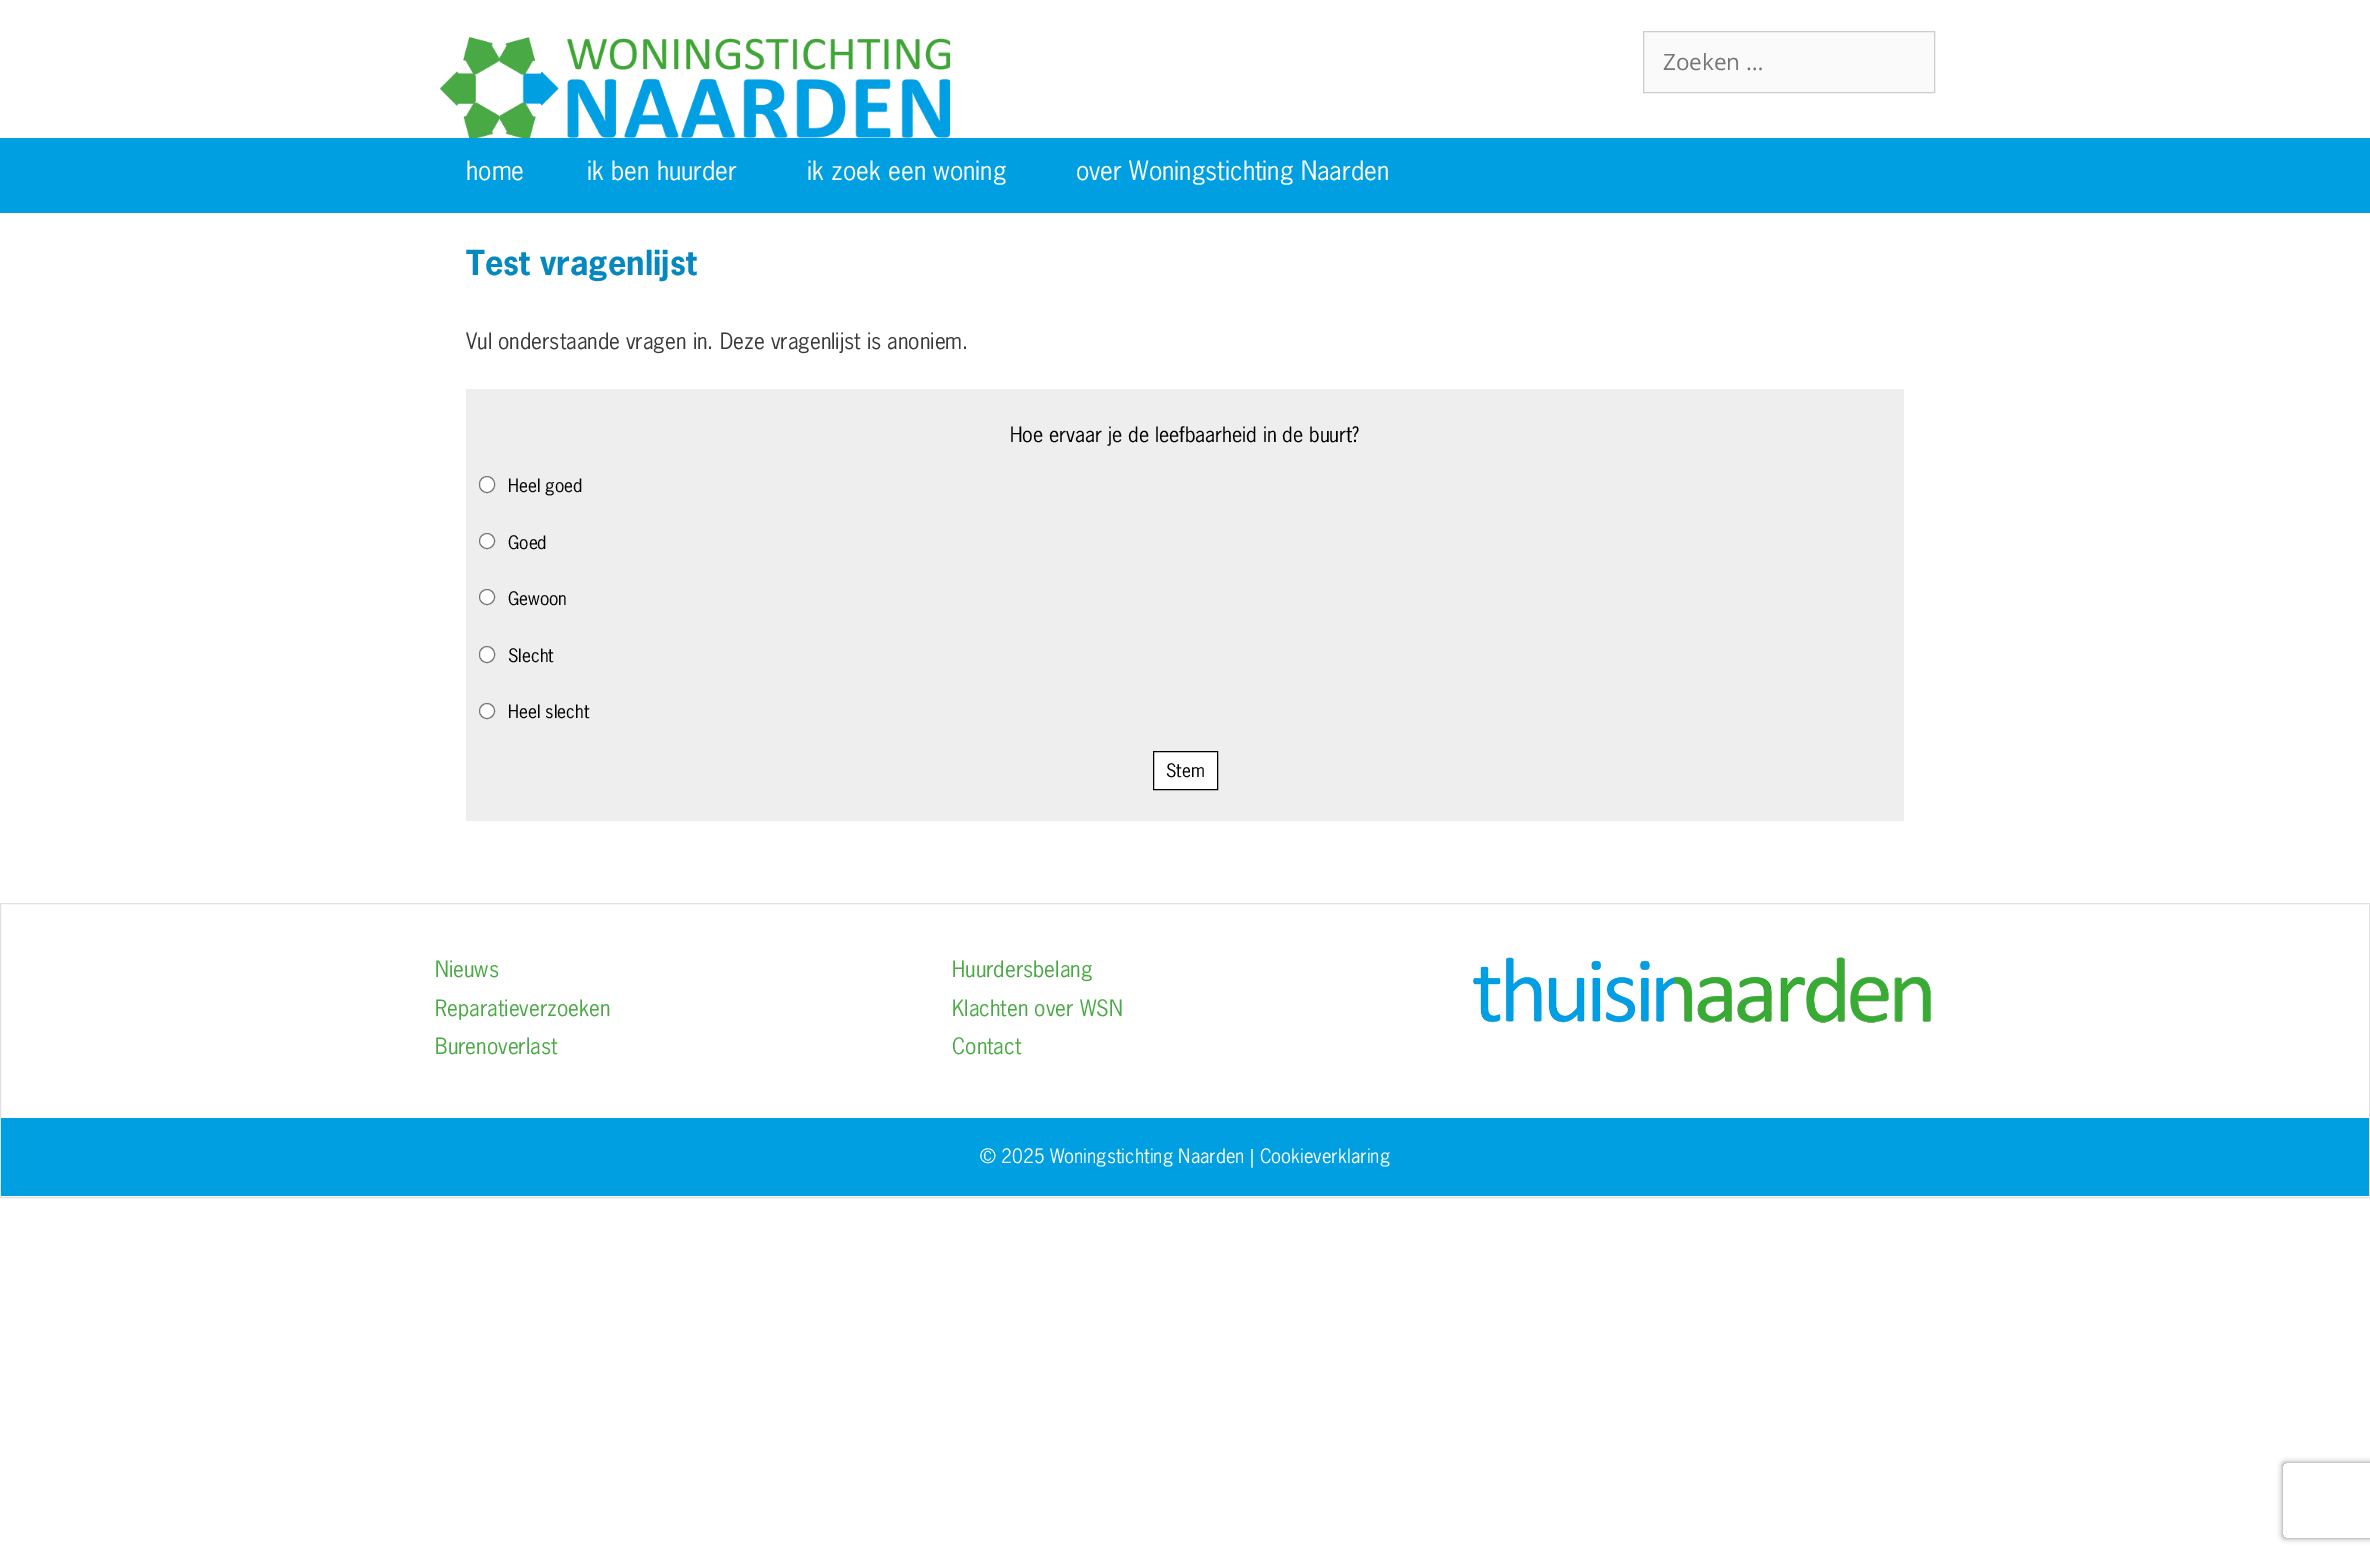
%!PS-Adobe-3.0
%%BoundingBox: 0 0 2370 1554
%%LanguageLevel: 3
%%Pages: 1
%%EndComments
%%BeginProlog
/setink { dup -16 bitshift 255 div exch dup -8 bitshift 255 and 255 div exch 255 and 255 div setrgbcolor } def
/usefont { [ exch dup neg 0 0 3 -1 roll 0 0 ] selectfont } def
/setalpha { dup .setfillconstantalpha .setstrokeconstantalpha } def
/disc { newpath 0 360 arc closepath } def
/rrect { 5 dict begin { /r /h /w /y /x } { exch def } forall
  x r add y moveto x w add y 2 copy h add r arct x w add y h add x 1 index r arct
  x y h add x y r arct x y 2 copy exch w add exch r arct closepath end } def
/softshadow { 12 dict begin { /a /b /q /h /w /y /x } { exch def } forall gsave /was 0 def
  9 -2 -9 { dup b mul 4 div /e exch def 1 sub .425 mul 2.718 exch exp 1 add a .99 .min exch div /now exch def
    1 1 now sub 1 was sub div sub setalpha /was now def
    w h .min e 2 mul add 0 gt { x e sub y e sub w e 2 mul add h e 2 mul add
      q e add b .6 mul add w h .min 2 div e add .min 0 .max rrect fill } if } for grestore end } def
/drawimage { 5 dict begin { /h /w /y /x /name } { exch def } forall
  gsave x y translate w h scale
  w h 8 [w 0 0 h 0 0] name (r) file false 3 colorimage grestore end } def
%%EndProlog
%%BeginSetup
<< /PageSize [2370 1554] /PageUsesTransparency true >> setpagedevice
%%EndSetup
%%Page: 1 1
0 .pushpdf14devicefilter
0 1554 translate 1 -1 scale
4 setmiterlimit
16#FFFFFF setink
0 0 2370 1554 rectfill
(img1.raw) 440 37 511 101 drawimage
16#FAFAFA setink
1643.5 31.5 moveto 1934.5 31.5 lineto 1934.5 92.5 lineto 1643.5 92.5 lineto closepath gsave fill grestore
16#CCCCCC setink
stroke
/OpenSans-Regular 22.5 usefont
16#757575 setink
1663 70 moveto (Zoeken …) show
16#009FE1 setink
0 138 2370 75 rectfill
/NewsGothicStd-Regular 25 usefont
16#FFFFFF setink
[
    [(home) 466 180]
    [(ik ben huurder) 587 180]
    [(ik zoek een woning) 807 180]
    [(over Woningstichting Naarden) 1076 180]
] { aload pop moveto show } forall
/NewsGothicStd-Bold 32.5 usefont
16#0588C0 setink
466 275 moveto (Test vragenlijst) show
/NewsGothicStd-Regular 21.25 usefont
16#3A3A3A setink
466 349 moveto (Vul onderstaande vragen in. Deze vragenlijst is anoniem.) show
16#EEEEEE setink
466 389 1438 432 rectfill
/NewsGothicStd-Regular 20 usefont
16#000000 setink
1010 442 moveto (Hoe ervaar je de leefbaarheid in de buurt?) show
16#FFFFFF setink
479.5 476.5 15 16 7.5 rrect gsave fill grestore
16#767676 setink
stroke
/NewsGothicStd-Regular 17.5 usefont
16#000000 setink
508 492 moveto (Heel goed) show
16#FFFFFF setink
487 541 7.5 disc gsave fill grestore
16#767676 setink
stroke
16#000000 setink
508 549 moveto (Goed) show
16#FFFFFF setink
487 597 7.5 disc gsave fill grestore
16#767676 setink
stroke
16#000000 setink
508 605 moveto (Gewoon) show
16#FFFFFF setink
479.5 646.5 15 16 7.5 rrect gsave fill grestore
16#767676 setink
stroke
16#000000 setink
508 662 moveto (Slecht) show
16#FFFFFF setink
487 711 7.5 disc gsave fill grestore
16#767676 setink
stroke
16#000000 setink
508 718 moveto (Heel slecht) show
16#FFFFFF setink
1153.5 751.5 moveto 1217.5 751.5 lineto 1217.5 789.5 lineto 1153.5 789.5 lineto closepath gsave fill grestore
16#000000 setink
stroke
1166 777 moveto (Stem) show
16#E0E0E0 setink
0.5 903.5 2369 294 rectstroke
/NewsGothicStd-Regular 21.25 usefont
16#4AA945 setink
[
    [(Nieuws) 435 977]
    [(Reparatieverzoeken) 435 1016]
    [(Burenoverlast) 435 1054]
    [(Huurdersbelang) 952 977]
    [(Klachten over WSN) 952 1016]
    [(Contact) 952 1054]
] { aload pop moveto show } forall
(img2.raw) 1473 957 458 66 drawimage
16#009FE1 setink
1 1118 2368 78 rectfill
/NewsGothicStd-Regular 18.75 usefont
16#FFFFFF setink
980 1163 moveto (© 2025 Woningstichting Naarden | Cookieverklaring) show
gsave
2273 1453 moveto 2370 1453 lineto 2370 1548 lineto 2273 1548 lineto closepath 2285.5 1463 moveto 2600.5 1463 lineto 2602 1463 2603 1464 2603 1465.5 curveto 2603 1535.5 lineto 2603 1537 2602 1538 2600.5 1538 curveto 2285.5 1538 lineto 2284 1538 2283 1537 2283 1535.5 curveto 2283 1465.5 lineto 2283 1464 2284 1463 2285.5 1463 curveto closepath eoclip newpath
16#808080 setink
2283 1463 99 75 2.5 3 1 softshadow
grestore
.poppdf14devicefilter showpage
%%EOF
